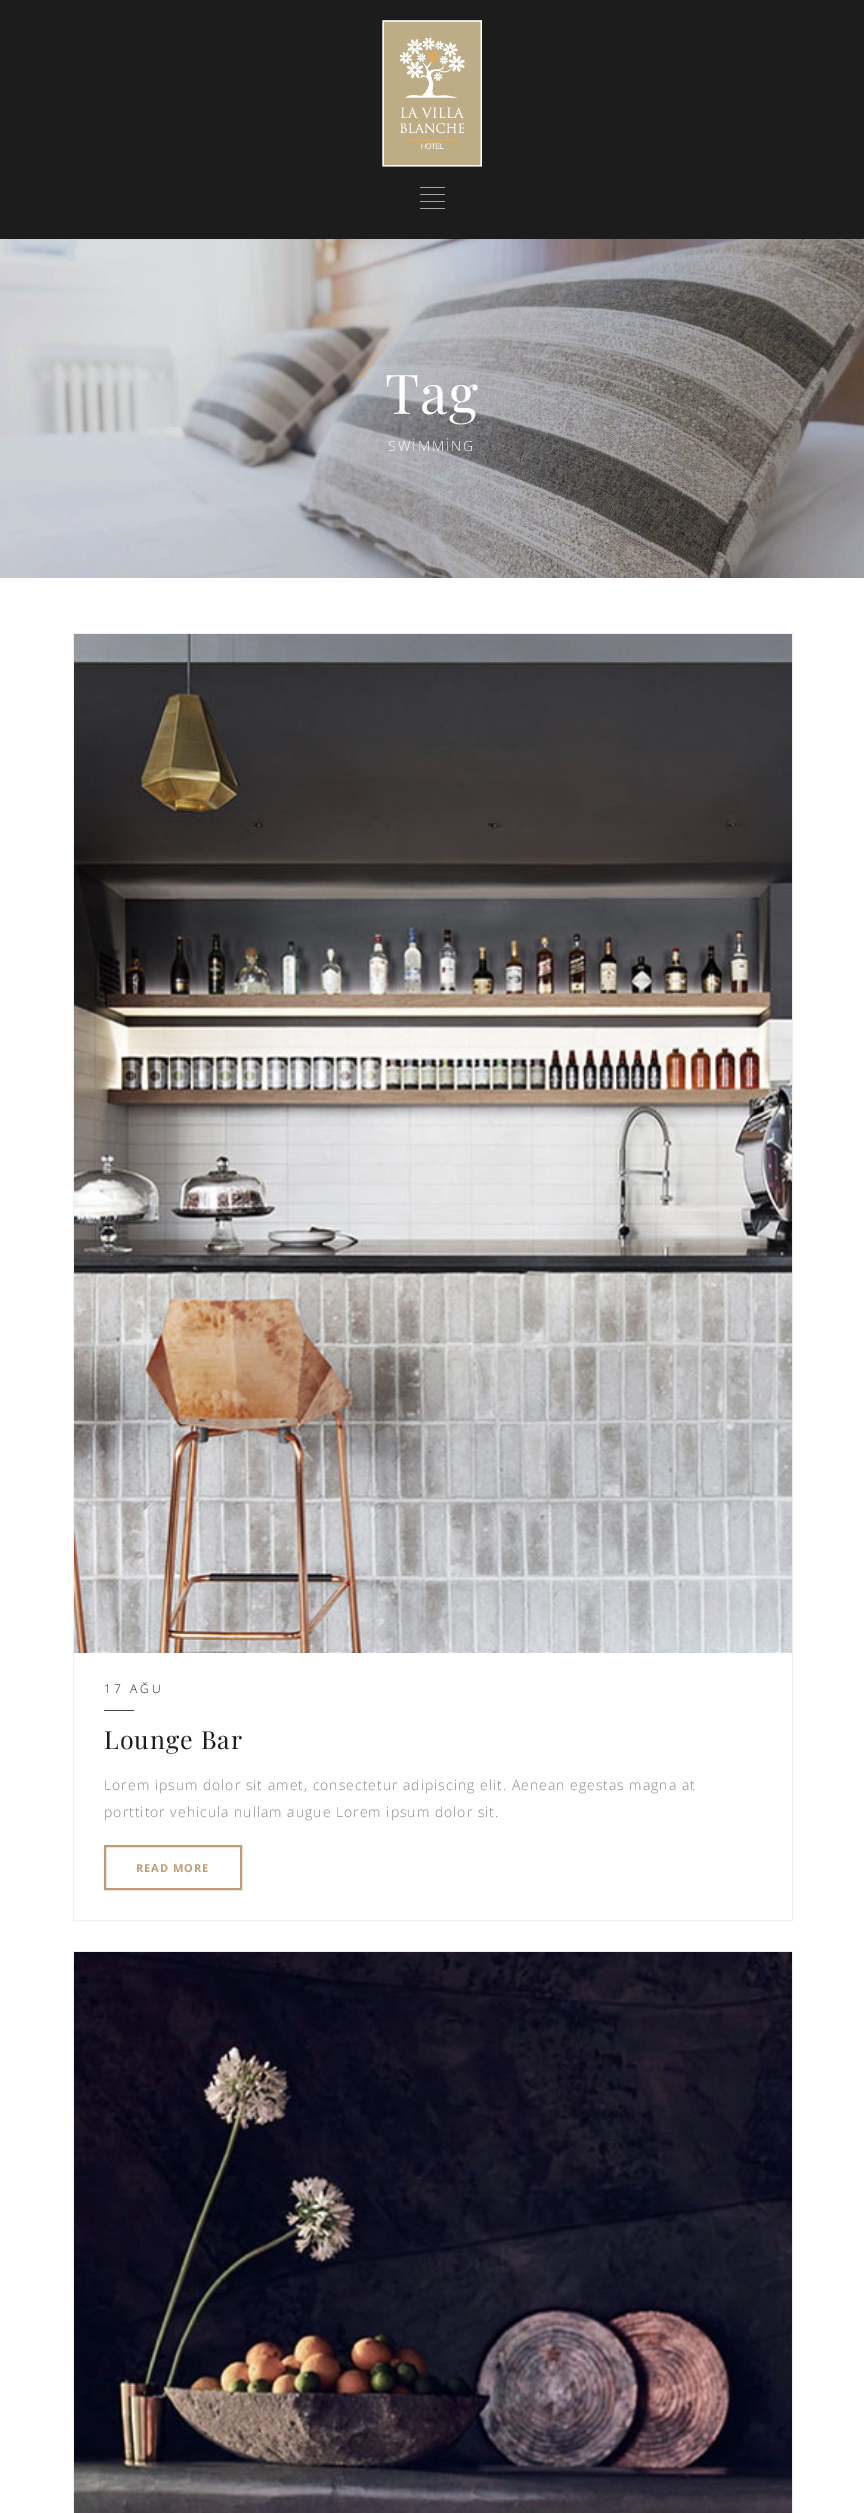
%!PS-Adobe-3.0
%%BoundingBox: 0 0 864 2513
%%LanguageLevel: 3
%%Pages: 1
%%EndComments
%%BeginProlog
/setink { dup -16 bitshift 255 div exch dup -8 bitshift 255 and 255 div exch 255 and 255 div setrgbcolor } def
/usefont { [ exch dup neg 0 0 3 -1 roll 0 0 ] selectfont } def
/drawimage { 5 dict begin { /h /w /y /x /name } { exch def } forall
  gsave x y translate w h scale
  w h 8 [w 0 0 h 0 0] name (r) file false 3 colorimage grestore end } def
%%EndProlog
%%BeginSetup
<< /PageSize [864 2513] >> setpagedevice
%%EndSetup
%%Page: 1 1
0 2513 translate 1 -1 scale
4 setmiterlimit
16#FFFFFF setink
0 0 864 2513 rectfill
16#1C1C1C setink
0 0 864 239 rectfill
(img1.raw) 382 20 100 147 drawimage
[
    [420 187 25 1 16#A3A3A3]
    [420 194 25 1 16#A3A3A3]
    [420 201 25 1 16#A3A3A3]
    [420 208 25 1 16#A3A3A3]
] { aload pop setink rectfill } forall
(img2.raw) 0 239 864 339 drawimage
/PlayfairDisplay-Regular 55 usefont
16#FFFFFF setink
385 414 moveto 1 0 (Tag) ashow
/OpenSans-Light 14 usefont
388 451 moveto 2 0 (SWİMMİNG) ashow
16#F1F1F1 setink
73.5 633.5 719 1287 rectstroke
(img3.raw) 74 634 718 1019 drawimage
/OpenSans-Light 12 usefont
16#1C1C1C setink
104 1693 moveto 3 0 (17 AĞU) ashow
16#444444 setink
104 1710 30 1 rectfill
/PlayfairDisplay-Regular 25 usefont
16#1C1C1C setink
104 1749 moveto 1 0 (Lounge Bar) ashow
/OpenSans-Light 14 usefont
16#878787 setink
104 1790 moveto 1 0 (Lorem ipsum dolor sit amet, consectetur adipiscing elit. Aenean egestas magna at) ashow
104 1817 moveto 1 0 (porttitor vehicula nullam augue Lorem ipsum dolor sit.) ashow
16#C19B76 setink
2 setlinewidth
105 1846 136 43 rectstroke
/OpenSans-Bold 11 usefont
136 1872 moveto 1 0 (READ MORE) ashow
16#F1F1F1 setink
1 setlinewidth
73.5 1951.5 719 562 rectstroke
(img4.raw) 74 1952 718 561 drawimage
showpage
%%EOF
